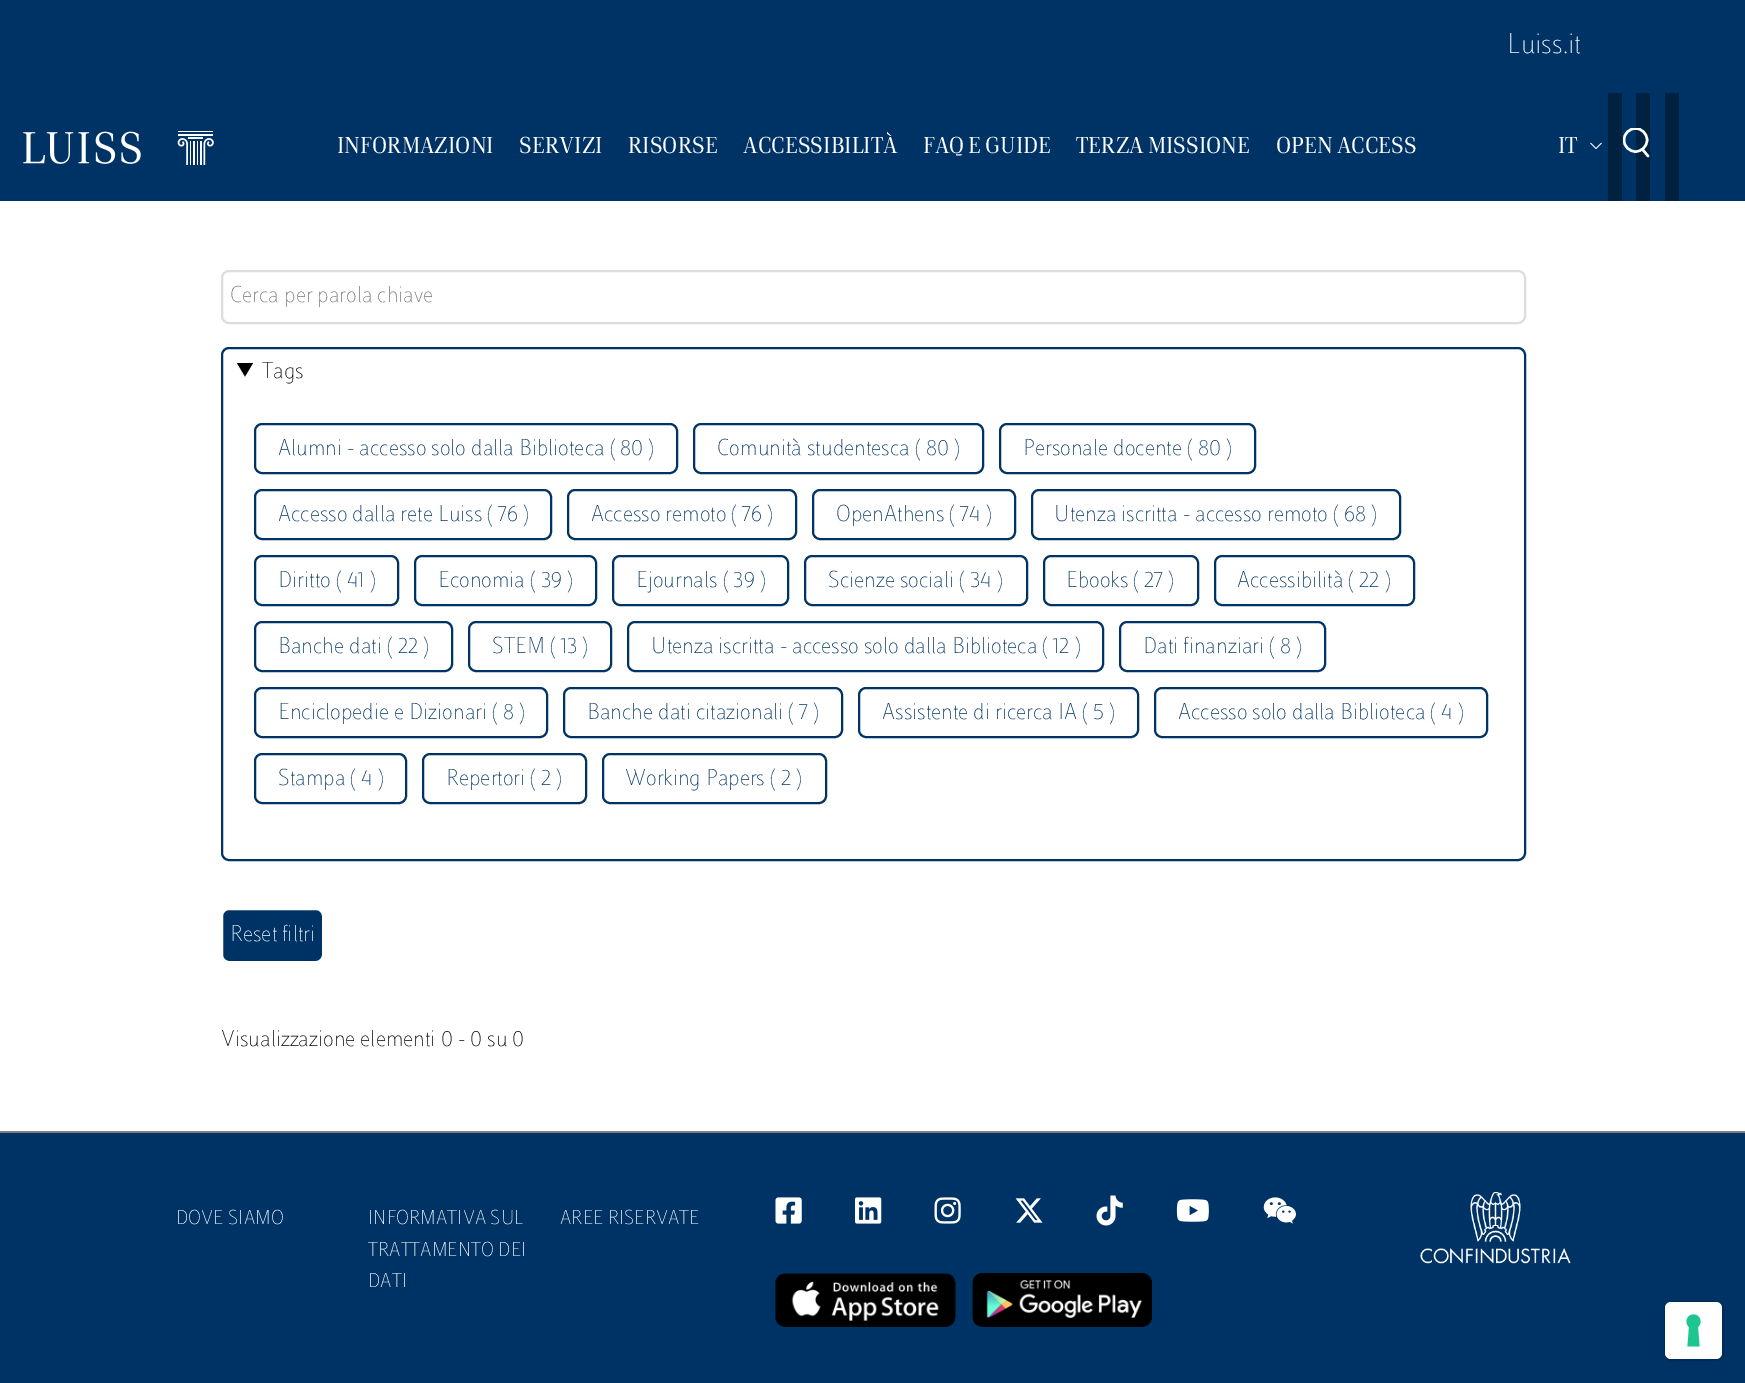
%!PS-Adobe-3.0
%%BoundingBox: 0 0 1745 1383
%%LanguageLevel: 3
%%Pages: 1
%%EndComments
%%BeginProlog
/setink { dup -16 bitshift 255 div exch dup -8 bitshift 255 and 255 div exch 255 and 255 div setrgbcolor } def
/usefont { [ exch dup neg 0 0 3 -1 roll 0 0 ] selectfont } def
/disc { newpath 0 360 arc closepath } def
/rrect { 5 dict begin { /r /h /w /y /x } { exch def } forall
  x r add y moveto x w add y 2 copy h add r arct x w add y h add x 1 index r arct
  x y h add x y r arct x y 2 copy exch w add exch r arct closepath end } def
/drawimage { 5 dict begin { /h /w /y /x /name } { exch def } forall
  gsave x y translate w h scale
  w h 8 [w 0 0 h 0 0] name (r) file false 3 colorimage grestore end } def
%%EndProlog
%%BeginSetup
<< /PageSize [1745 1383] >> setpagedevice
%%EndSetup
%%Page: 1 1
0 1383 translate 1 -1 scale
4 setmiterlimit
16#FFFFFF setink
0 0 1745 1383 rectfill
16#003365 setink
0 0 1745 201 rectfill
/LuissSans-Thin 30 usefont
16#FFFFFF setink
1507 53 moveto (Luiss.it) show
(img1.raw) 23 131 191 34 drawimage
/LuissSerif-Regular 24 usefont
[
    [(INFORMAZIONI) 337 153]
    [(SERVIZI) 519 153]
    [(RISORSE) 628 153]
    [(ACCESSIBILITÀ) 743 153]
    [(FAQ E GUIDE) 923 153]
    [(TERZA MISSIONE) 1076 153]
    [(OPEN ACCESS) 1276 153]
    [(IT) 1558 153]
] { aload pop moveto show } forall
(img2.raw) 1590 143 12 6 drawimage
16#002240 setink
1636 93 14 108 rectfill
gsave
1623 128 26 30 rectclip
16#FFFFFF setink
2.4 setlinewidth
1635.5 140 11.5 disc stroke
grestore
16#FFFFFF setink
2.4 setlinewidth
1 setlinecap
1 setlinejoin
1648 156 moveto 1642.5 149.5 lineto stroke
16#002240 setink
1608 93 14 108 rectfill
1665 93 14 108 rectfill
16#DDDDDD setink
2 setlinewidth
0 setlinecap
0 setlinejoin
222 271 1303 52 7 rrect stroke
/LuissSans-Thin 24 usefont
16#757575 setink
230 302 moveto (Cerca per parola chiave) show
16#003365 setink
222 348 1303 512 7 rrect stroke
16#010101 setink
237 363 moveto 253 363 lineto 245 376.5 lineto closepath fill
262 378 moveto (Tags) show
16#003365 setink
255 424 422 49 7 rrect stroke
278 455 moveto (Alumni - accesso solo dalla Biblioteca \( 80 \)) show
694 424 289 49 7 rrect stroke
717 455 moveto (Comunità studentesca \( 80 \)) show
1000 424 255 49 7 rrect stroke
1023 455 moveto (Personale docente \( 80 \)) show
255 490 296 49 7 rrect stroke
278 521 moveto (Accesso dalla rete Luiss \( 76 \)) show
568 490 228 49 7 rrect stroke
591 521 moveto (Accesso remoto \( 76 \)) show
813 490 202 49 7 rrect stroke
836 521 moveto (OpenAthens \( 74 \)) show
1032 490 368 49 7 rrect stroke
1054 521 moveto (Utenza iscritta - accesso remoto \( 68 \)) show
255 556 143 49 7 rrect stroke
278 587 moveto (Diritto \( 41 \)) show
415 556 181 49 7 rrect stroke
438 587 moveto (Economia \( 39 \)) show
613 556 175 49 7 rrect stroke
636 587 moveto (Ejournals \( 39 \)) show
805 556 222 49 7 rrect stroke
828 587 moveto (Scienze sociali \( 34 \)) show
1044 556 154 49 7 rrect stroke
1066 587 moveto (Ebooks \( 27 \)) show
1215 556 199 49 7 rrect stroke
1237 587 moveto (Accessibilità \( 22 \)) show
255 622 197 49 7 rrect stroke
278 653 moveto (Banche dati \( 22 \)) show
469 622 142 49 7 rrect stroke
492 653 moveto (STEM \( 13 \)) show
628 622 475 49 7 rrect stroke
651 653 moveto (Utenza iscritta - accesso solo dalla Biblioteca \( 12 \)) show
1120 622 205 49 7 rrect stroke
1143 653 moveto (Dati finanziari \( 8 \)) show
255 688 292 49 7 rrect stroke
278 719 moveto (Enciclopedie e Dizionari \( 8 \)) show
564 688 278 49 7 rrect stroke
587 719 moveto (Banche dati citazionali \( 7 \)) show
859 688 279 49 7 rrect stroke
882 719 moveto (Assistente di ricerca IA \( 5 \)) show
1155 688 332 49 7 rrect stroke
1178 719 moveto (Accesso solo dalla Biblioteca \( 4 \)) show
255 754 151 49 7 rrect stroke
278 785 moveto (Stampa \( 4 \)) show
423 754 163 49 7 rrect stroke
446 785 moveto (Repertori \( 2 \)) show
603 754 223 49 7 rrect stroke
625 785 moveto (Working Papers \( 2 \)) show
222 909 101 53 7 rrect gsave fill grestore
16#FFFFFF setink
stroke
230 941 moveto (Reset filtri) show
16#010101 setink
221 1046 moveto (Visualizzazione elementi 0 - 0 su 0) show
16#003365 setink
0 1133 1745 250 rectfill
16#808080 setink
0 1131 1745 2 rectfill
/LuissSans-Thin 21 usefont
16#FFFFFF setink
[
    [(DOVE SIAMO) 176 1224]
    [(INFORMATIVA SUL) 368 1224]
    [(TRATTAMENTO DEI) 368 1256]
    [(DATI) 368 1287]
    [(AREE RISERVATE) 560 1224]
] { aload pop moveto show } forall
(img3.raw) 775 1197 27 27 drawimage
(img4.raw) 855 1197 27 27 drawimage
(img5.raw) 934 1197 27 27 drawimage
(img6.raw) 1015 1198 28 25 drawimage
(img7.raw) 1096 1195 27 31 drawimage
(img8.raw) 1176 1199 33 23 drawimage
(img9.raw) 1263 1197 33 27 drawimage
(img10.raw) 775 1273 181 54 drawimage
(img11.raw) 972 1273 180 54 drawimage
(img12.raw) 1420 1192 151 72 drawimage
16#002B56 setink
1665 1302 58 58 7 rrect stroke
16#FFFFFF setink
1665 1302 57 57 6 rrect fill
16#1CC691 setink
1693.5 1314.5 moveto 1700 1314.5 1703 1322.5 1698 1327 curveto 1699.5 1346.5 lineto 1687.5 1346.5 lineto 1689 1327 lineto 1684 1322.5 1687 1314.5 1693.5 1314.5 curveto closepath eofill
showpage
%%EOF
